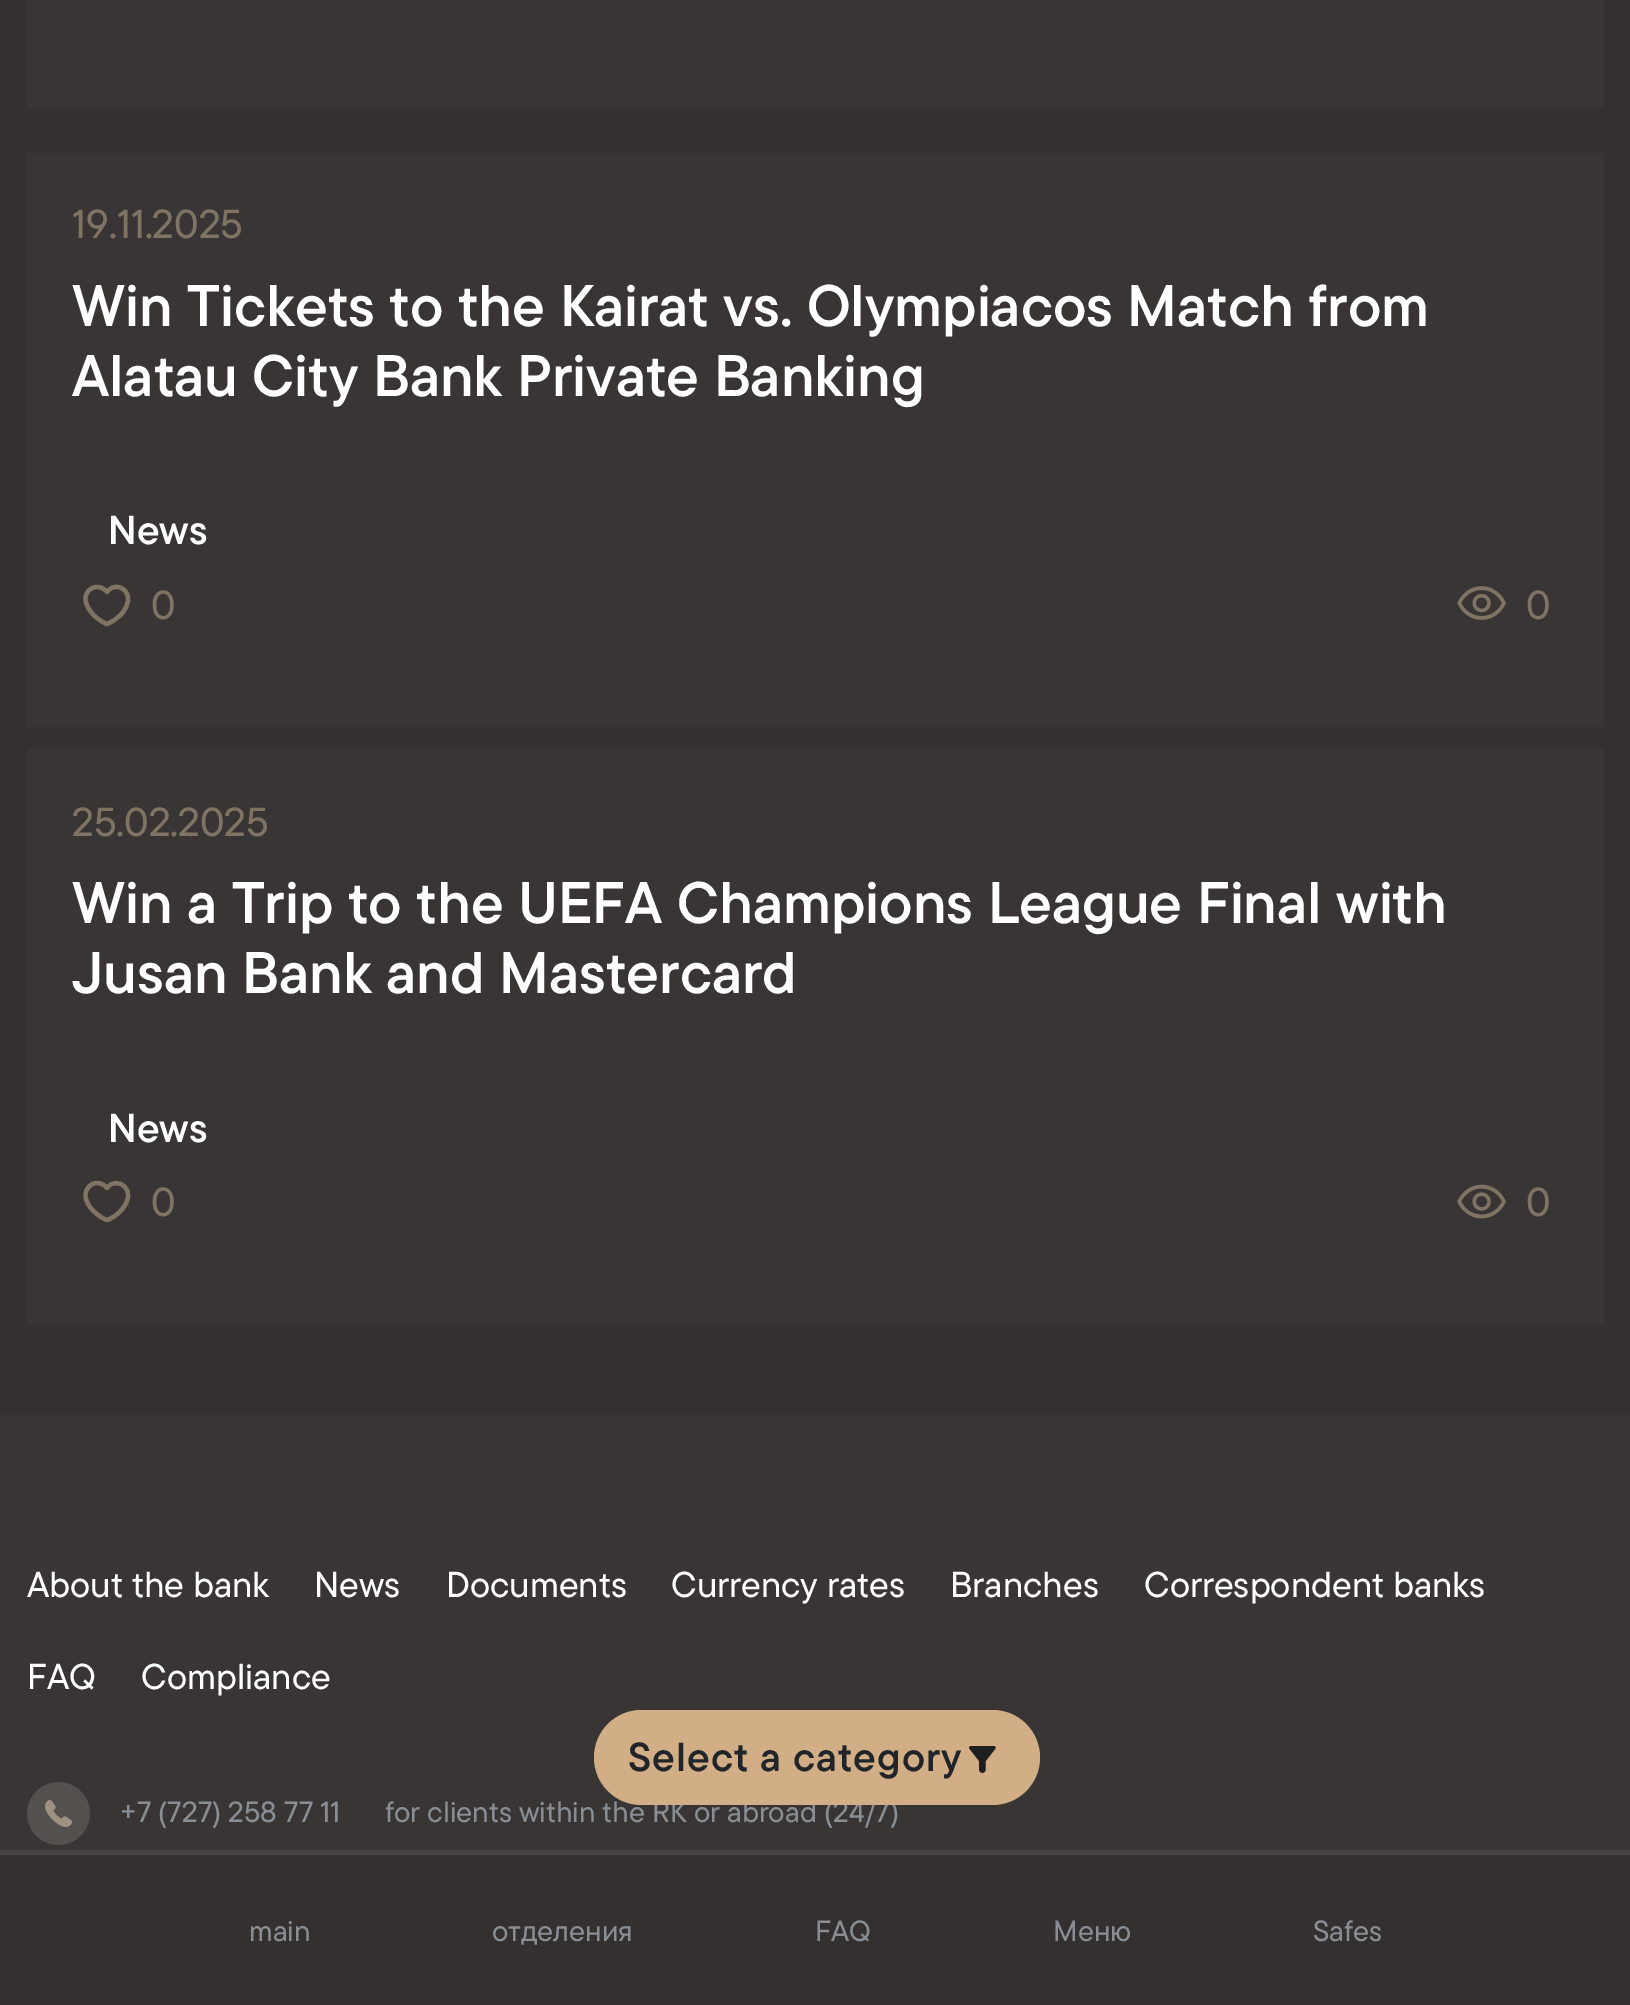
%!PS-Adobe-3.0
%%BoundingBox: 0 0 1630 2005
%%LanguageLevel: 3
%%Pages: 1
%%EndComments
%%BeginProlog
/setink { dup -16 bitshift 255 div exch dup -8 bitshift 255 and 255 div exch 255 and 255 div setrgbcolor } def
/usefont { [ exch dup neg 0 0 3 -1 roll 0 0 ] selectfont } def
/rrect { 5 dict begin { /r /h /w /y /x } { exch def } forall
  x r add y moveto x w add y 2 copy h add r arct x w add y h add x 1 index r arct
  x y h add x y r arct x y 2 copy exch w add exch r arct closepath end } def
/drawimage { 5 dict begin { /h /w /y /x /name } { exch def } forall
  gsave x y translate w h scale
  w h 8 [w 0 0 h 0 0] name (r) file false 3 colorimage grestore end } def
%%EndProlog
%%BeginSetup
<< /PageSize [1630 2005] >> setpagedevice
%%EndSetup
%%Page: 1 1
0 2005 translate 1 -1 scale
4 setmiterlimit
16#34302F setink
0 0 1630 2005 rectfill
16#393534 setink
27 0 1577 108 rectfill
27 153 1577 574 rectfill
/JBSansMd-Medium 40.5 usefont
16#7F7464 setink
72 238 moveto (19.11.2025) show
/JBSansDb-SemiBold 58.5 usefont
16#FFFFFF setink
72 326 moveto (Win Tickets to the Kairat vs. Olympiacos Match from) show
72 396 moveto (Alatau City Bank Private Banking) show
/JBSansDb-SemiBold 40.5 usefont
108 544 moveto (News) show
16#7F7464 setink
4.3 setlinewidth
1 setlinecap
1 setlinejoin
97 587 moveto 90.5 587 85.5 592 85.5 598.5 curveto 85.5 610.5 99.5 621.5 107 624 curveto 112 622 117 618.5 120.5 615 curveto 140.5 594 116.5 578 107 592 curveto 104.5 589 101 587 97 587 curveto closepath stroke
/JBSansMd-Medium 40.5 usefont
151 619 moveto (0) show
(img1.raw) 1457 586 49 34 drawimage
1526 619 moveto (0) show
16#393534 setink
27 749 1577 576 rectfill
16#7F7464 setink
72 836 moveto (25.02.2025) show
/JBSansDb-SemiBold 58.5 usefont
16#FFFFFF setink
72 923 moveto (Win a Trip to the UEFA Champions League Final with) show
72 993 moveto (Jusan Bank and Masterсard) show
/JBSansDb-SemiBold 40.5 usefont
108 1142 moveto (News) show
16#7F7464 setink
97 1183 moveto 90.5 1183 85.5 1188.5 85.5 1195 curveto 85.5 1207 99.5 1217.5 107 1220 curveto 112 1218.5 117 1215 120.5 1211 curveto 140.5 1190.5 116.5 1174.5 107 1188 curveto 104.5 1185 101 1183 97 1183 curveto closepath stroke
/JBSansMd-Medium 40.5 usefont
151 1216 moveto (0) show
(img2.raw) 1457 1184 49 35 drawimage
1526 1216 moveto (0) show
16#393534 setink
0 1415 1630 435 rectfill
/JBSansMd-Medium 29.25 usefont
16#898D94 setink
385 1822 moveto (for clients within the RK or abroad \(24/7\)) show
16#D1AE85 setink
594 1710 446 95 47.5 rrect fill
/JBSansDb-SemiBold 40.5 usefont
16#212529 setink
628 1771 moveto 1 0 (Select a category) ashow
(img3.raw) 969 1746 27 27 drawimage
/JBSansMd-Medium 36 usefont
16#FFFFFF setink
[
    [(About the bank) 27 1597]
    [(News) 314 1597]
    [(Documents) 446 1597]
    [(Currency rates) 671 1597]
    [(Branches) 950 1597]
    [(Correspondent banks) 1144 1597]
    [(FAQ) 27 1689]
    [(Compliance) 141 1689]
] { aload pop moveto show } forall
(img4.raw) 27 1782 63 63 drawimage
/JBSansMd-Medium 29.25 usefont
16#898D94 setink
120 1822 moveto (+7 \(727\) 258 77 11) show
16#474240 setink
0 1850 1630 5 rectfill
16#898D94 setink
[
    [(main) 249 1941]
    [(отделения) 492 1941]
    [(FAQ) 815 1941]
    [(Меню) 1053 1941]
    [(Safes) 1313 1941]
] { aload pop moveto show } forall
showpage
%%EOF
